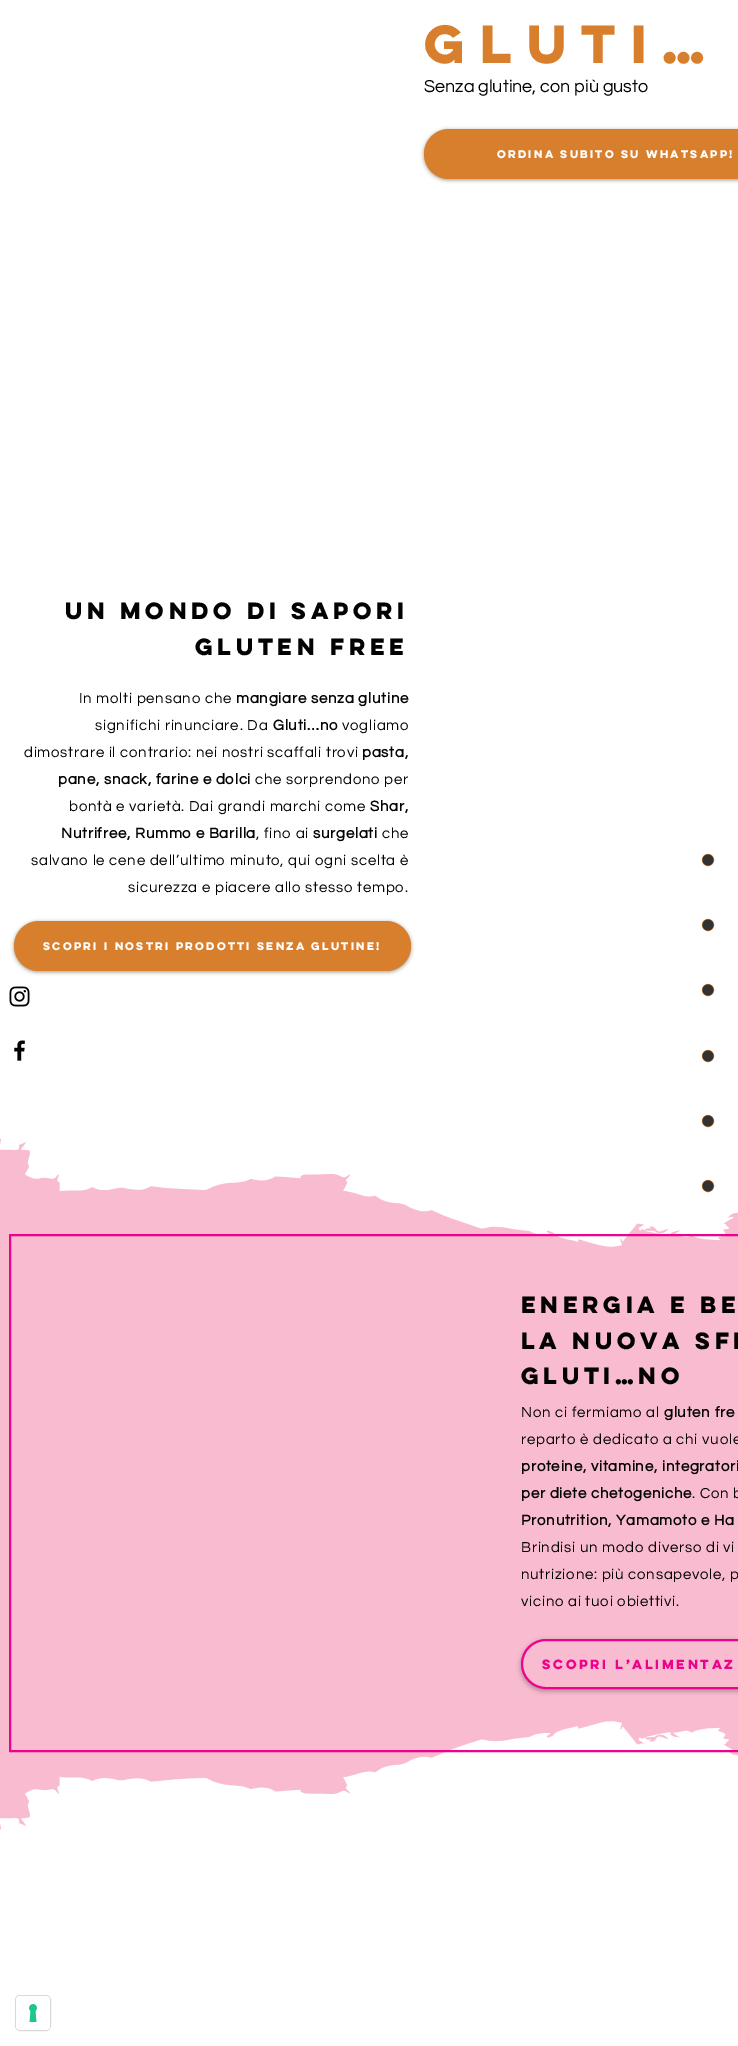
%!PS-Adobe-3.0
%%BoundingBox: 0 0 738 2046
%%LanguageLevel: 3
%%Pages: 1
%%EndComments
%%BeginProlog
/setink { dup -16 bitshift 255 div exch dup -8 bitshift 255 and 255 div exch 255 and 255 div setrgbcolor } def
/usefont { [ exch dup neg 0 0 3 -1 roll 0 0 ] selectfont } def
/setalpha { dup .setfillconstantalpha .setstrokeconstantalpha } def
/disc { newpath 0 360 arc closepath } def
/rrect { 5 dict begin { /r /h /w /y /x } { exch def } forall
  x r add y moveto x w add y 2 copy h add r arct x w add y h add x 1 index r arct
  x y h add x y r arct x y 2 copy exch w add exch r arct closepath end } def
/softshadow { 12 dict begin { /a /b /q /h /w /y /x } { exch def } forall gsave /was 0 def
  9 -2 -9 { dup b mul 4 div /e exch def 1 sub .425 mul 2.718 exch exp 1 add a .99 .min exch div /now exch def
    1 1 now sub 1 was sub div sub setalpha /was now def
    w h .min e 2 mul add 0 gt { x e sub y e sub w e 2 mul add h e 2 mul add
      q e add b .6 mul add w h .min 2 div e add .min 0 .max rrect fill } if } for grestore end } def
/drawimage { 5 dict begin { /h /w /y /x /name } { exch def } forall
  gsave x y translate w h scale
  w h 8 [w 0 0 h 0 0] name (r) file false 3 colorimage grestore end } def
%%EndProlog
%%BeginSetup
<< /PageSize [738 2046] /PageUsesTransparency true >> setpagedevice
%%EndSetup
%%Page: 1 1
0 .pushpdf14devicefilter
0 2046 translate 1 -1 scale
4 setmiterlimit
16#FFFFFF setink
0 0 738 2046 rectfill
/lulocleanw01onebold-Bold 48 usefont
16#D87F2D setink
424 63 moveto 4.75 0 (Gluti…) ashow
/Questrial-Regular 18 usefont
16#030202 setink
424 92 moveto (Senza glutine, con più gusto) show
16#5B4D3D setink
424 130 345 50 25 2 0.6 softshadow
16#D87F2D setink
424 129 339 50 25 rrect fill
/lulocleanw01onebold-Bold 10 usefont
16#FFFFFF setink
497 158 moveto (Ordina subito su WhatsApp!) show
/lulocleanw01onebold-Bold 21 usefont
16#030202 setink
65 619 moveto (Un mondo di sapori) show
195 655 moveto (gluten free) show
/Questrial-Regular 15 usefont
79 703 moveto 0.75 0 (In molti pensano che) ashow
/Questrial-Bold 15 usefont
236 703 moveto 0.75 0 (mangiare senza glutine) ashow
/Questrial-Regular 15 usefont
95 730 moveto 0.75 0 (significhi rinunciare. Da) ashow
/Questrial-Bold 15 usefont
273 730 moveto 0.75 0 (Gluti…no) ashow
/Questrial-Regular 15 usefont
342 730 moveto 0.75 0 (vogliamo) ashow
24 757 moveto 0.75 0 (dimostrare il contrario: nei nostri scaffali trovi) ashow
/Questrial-Bold 15 usefont
362 757 moveto 0.75 0 (pasta,) ashow
58 784 moveto 0.75 0 (pane, snack, farine e dolci) ashow
/Questrial-Regular 15 usefont
255 784 moveto 0.75 0 (che sorprendono per) ashow
69 811 moveto 0.75 0 (bontà e varietà. Dai grandi marchi come) ashow
/Questrial-Bold 15 usefont
370 811 moveto 0.75 0 (Shar,) ashow
61 838 moveto 0.75 0 (Nutrifree, Rummo e Barilla) ashow
/Questrial-Regular 15 usefont
256 838 moveto 0.75 0 (, fino ai) ashow
/Questrial-Bold 15 usefont
313 838 moveto 0.75 0 (surgelati) ashow
/Questrial-Regular 15 usefont
382 838 moveto 0.75 0 (che) ashow
31 865 moveto 0.75 0 (salvano le cene dell’ultimo minuto, qui ogni scelta è) ashow
128 892 moveto 0.75 0 (sicurezza e piacere allo stesso tempo.) ashow
16#5B4D3D setink
14 922 397 50 25 2 0.6 softshadow
16#D87F2D setink
14 921 397 50 25 rrect fill
/lulocleanw01onebold-Bold 10 usefont
16#FFFFFF setink
43 950 moveto (Scopri i nostri prodotti senza glutine!) show
16#F8BBD0 setink
0 1138 738 692 rectfill
(img1.raw) 0 1070 738 177 drawimage
(img2.raw) 0 1721 738 177 drawimage
16#ED028B setink
2 setlinewidth
10 1235 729 516 rectstroke
/lulocleanw01onebold-Bold 21 usefont
16#030202 setink
[
    [(Energia e be) 521 1313]
    [(la nuova sfi) 521 1349]
    [(Gluti…no) 521 1384]
] { aload pop moveto show } forall
/Questrial-Regular 15 usefont
521 1417 moveto 0.75 0 (Non ci fermiamo al) ashow
/Questrial-Bold 15 usefont
664 1417 moveto 0.75 0 (gluten fre) ashow
/Questrial-Regular 15 usefont
521 1444 moveto 0.75 0 (reparto è dedicato a chi vuole) ashow
/Questrial-Bold 15 usefont
521 1471 moveto 0.75 0 (proteine, vitamine, integratori) ashow
521 1498 moveto 0.75 0 (per diete chetogeniche) ashow
/Questrial-Regular 15 usefont
692 1498 moveto 0.75 0 (. Con b) ashow
/Questrial-Bold 15 usefont
521 1525 moveto 0.75 0 (Pronutrition, Yamamoto e Ha) ashow
/Questrial-Regular 15 usefont
521 1552 moveto 0.75 0 (Brindisi un modo diverso di vi) ashow
521 1579 moveto 0.75 0 (nutrizione: più consapevole, p) ashow
521 1606 moveto 0.75 0 (vicino ai tuoi obiettivi.) ashow
gsave
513 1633 moveto 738 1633 lineto 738 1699 lineto 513 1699 lineto closepath 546 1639 moveto 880 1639 lineto 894 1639 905 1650 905 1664 curveto 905 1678 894 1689 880 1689 curveto 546 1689 lineto 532 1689 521 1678 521 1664 curveto 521 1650 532 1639 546 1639 curveto closepath eoclip newpath
16#4D3B41 setink
520 1640 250 52 26 2 0.32 softshadow
grestore
16#ED028B setink
522 1640 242 48 24 rrect stroke
/lulocleanw01onebold-Bold 12 usefont
542 1669 moveto (Scopri l’alimentaz) show
(img3.raw) 9 986 21 21 drawimage
(img4.raw) 14 1040 11 21 drawimage
16#D87F2D setink
1.1 setlinewidth
708 860 5.5 disc stroke
16#323232 setink
708 860 5.5 disc fill
16#D87F2D setink
708 925 5.5 disc stroke
16#323232 setink
708 925 5.5 disc fill
16#D87F2D setink
708 990 5.5 disc stroke
16#323232 setink
708 990 5.5 disc fill
16#D87F2D setink
708 1056 5.5 disc stroke
16#323232 setink
708 1056 5.5 disc fill
16#D87F2D setink
708 1121 5.5 disc stroke
16#323232 setink
708 1121 5.5 disc fill
16#D87F2D setink
708 1186 5.5 disc stroke
16#323232 setink
708 1186 5.5 disc fill
16#D9D9D9 setink
1 setlinewidth
15.5 1995.5 35 35 4.5 rrect stroke
16#FFFFFF setink
16 1996 34 34 4 rrect fill
(img5.raw) 29 2004 8 18 drawimage
.poppdf14devicefilter showpage
%%EOF
